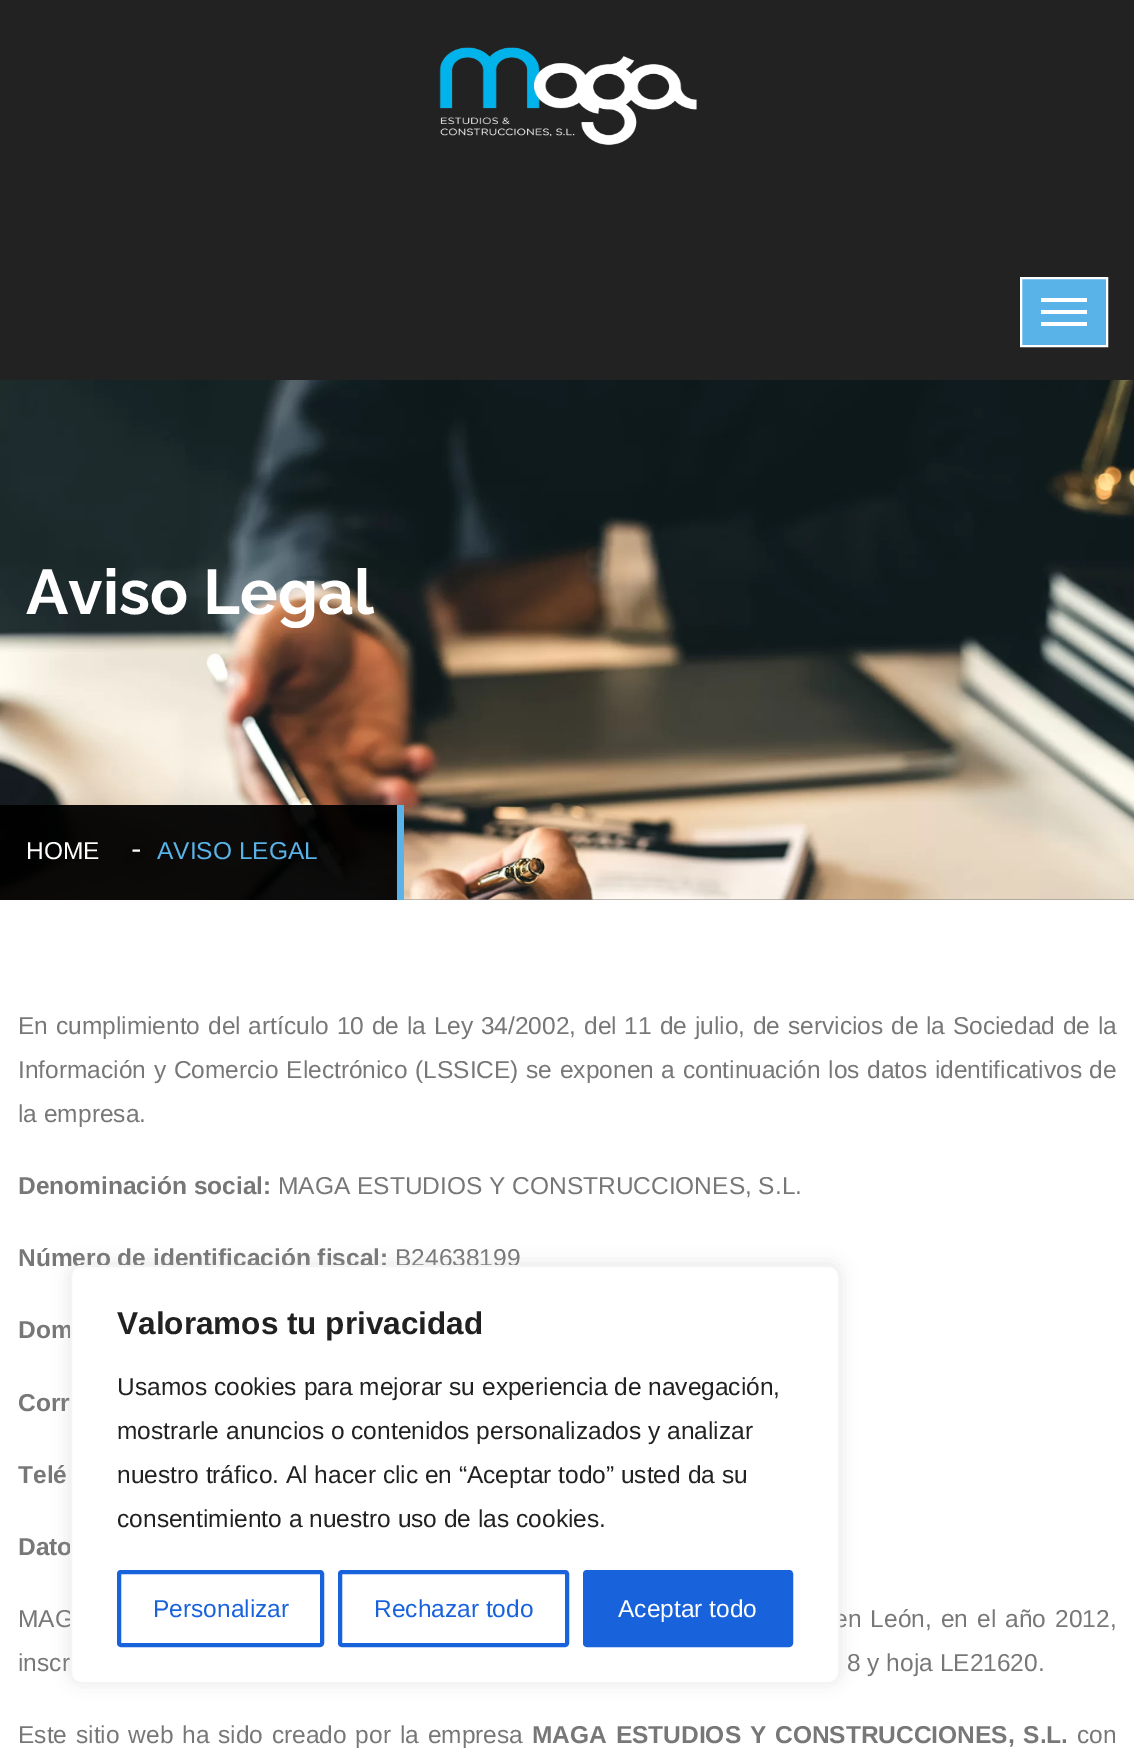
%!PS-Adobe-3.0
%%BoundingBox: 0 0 1134 1753
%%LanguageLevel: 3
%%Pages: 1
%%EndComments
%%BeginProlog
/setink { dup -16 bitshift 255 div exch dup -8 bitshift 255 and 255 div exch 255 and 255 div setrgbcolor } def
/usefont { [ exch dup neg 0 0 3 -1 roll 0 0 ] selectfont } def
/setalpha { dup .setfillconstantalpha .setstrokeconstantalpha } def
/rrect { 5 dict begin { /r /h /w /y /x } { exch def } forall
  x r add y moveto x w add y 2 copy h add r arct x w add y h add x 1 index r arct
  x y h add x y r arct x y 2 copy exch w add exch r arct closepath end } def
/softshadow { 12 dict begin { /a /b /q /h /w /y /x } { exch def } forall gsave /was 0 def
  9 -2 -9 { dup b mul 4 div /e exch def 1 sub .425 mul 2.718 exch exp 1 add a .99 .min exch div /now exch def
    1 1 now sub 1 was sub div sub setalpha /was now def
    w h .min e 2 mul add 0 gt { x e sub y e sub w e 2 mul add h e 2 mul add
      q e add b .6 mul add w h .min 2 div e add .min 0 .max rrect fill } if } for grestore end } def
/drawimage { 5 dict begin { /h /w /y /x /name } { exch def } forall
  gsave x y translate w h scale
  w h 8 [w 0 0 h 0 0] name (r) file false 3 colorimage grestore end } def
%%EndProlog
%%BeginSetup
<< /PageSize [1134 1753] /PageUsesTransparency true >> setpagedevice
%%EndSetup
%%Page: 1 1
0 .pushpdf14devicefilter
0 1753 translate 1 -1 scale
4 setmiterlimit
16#FFFFFF setink
0 0 1134 1753 rectfill
16#222222 setink
0 0 1134 380 rectfill
(img1.raw) 439 47 258 98 drawimage
16#59B3E8 setink
1021 278 moveto 1107 278 lineto 1107 346 lineto 1021 346 lineto closepath gsave fill grestore
16#FFFFFF setink
2 setlinewidth
stroke
[
    [1041 298 46 4 16#FFFFFF]
    [1041 310 46 4 16#FFFFFF]
    [1041 322 46 4 16#FFFFFF]
    [0 899 1134 1 16#808080]
] { aload pop setink rectfill } forall
(img2.raw) 0 380 1134 520 drawimage
/Raleway-Bold 63 usefont
16#FFFFFF setink
26 614 moveto (Aviso Legal) show
0.95 setalpha
[
    [26 805 371 95 16#000000]
] { aload pop setink rectfill } forall
1 setalpha
[
    [397 805 7 95 16#59B3E8]
] { aload pop setink rectfill } forall
0.95 setalpha
[
    [0 805 26 95 16#000000]
] { aload pop setink rectfill } forall
/LiberationSans-Regular 24.5 usefont
1 setalpha
16#FFFFFF setink
26 859 moveto (HOME) show
/LiberationSans-Regular 31.5 usefont
131 859 moveto (-) show
/LiberationSans-Regular 24.5 usefont
16#59B3E8 setink
157 859 moveto (AVISO LEGAL) show
16#777777 setink
18 1034 moveto 1 0 32 (En cumplimiento del artículo 10 de la Ley 34/2002, del 11 de julio, de servicios de la Sociedad de la) widthshow
18 1078 moveto 0.9 0 32 (Información y Comercio Electrónico \(LSSICE\) se exponen a continuación los datos identificativos de) widthshow
18 1122 moveto (la empresa.) show
/LiberationSans-Bold 24.5 usefont
18 1194 moveto (Denominación social:) show
/LiberationSans-Regular 24.5 usefont
278 1194 moveto (MAGA ESTUDIOS Y CONSTRUCCIONES, S.L.) show
/LiberationSans-Bold 24.5 usefont
18 1266 moveto (Número de identificación fiscal:) show
/LiberationSans-Regular 24.5 usefont
395 1266 moveto (B24638199) show
/LiberationSans-Bold 24.5 usefont
[
    [(Dom) 18 1338]
    [(Corr) 18 1411]
    [(Telé) 18 1483]
    [(Dato) 18 1555]
] { aload pop moveto show } forall
/LiberationSans-Regular 24.5 usefont
18 1627 moveto 2.25 0 32 (MAG) widthshow
834 1627 moveto 2.25 0 32 (en León, en el año 2012,) widthshow
18 1671 moveto (inscr) show
847 1671 moveto (8 y hoja LE21620.) show
18 1743 moveto 2 0 32 (Este sitio web ha sido creado por la empresa) widthshow
/LiberationSans-Bold 24.5 usefont
532 1743 moveto 2 0 32 (MAGA ESTUDIOS Y CONSTRUCCIONES, S.L.) widthshow
/LiberationSans-Regular 24.5 usefont
1077 1743 moveto (con) show
16#ACABAB setink
70 1264 770 418 11 9 0.3 softshadow
16#FFFFFF setink
71 1266 768 417 10 rrect gsave fill grestore
16#F4F4F4 setink
stroke
/LiberationSans-Bold 31.5 usefont
16#212121 setink
117 1334 moveto (Valoramos tu privacidad) show
/LiberationSans-Regular 24.5 usefont
[
    [(Usamos cookies para mejorar su experiencia de navegación,) 117 1395]
    [(mostrarle anuncios o contenidos personalizados y analizar) 117 1439]
    [(nuestro tráfico. Al hacer clic en “Aceptar todo” usted da su) 117 1483]
    [(consentimiento a nuestro uso de las cookies.) 117 1527]
] { aload pop moveto show } forall
16#1863DC setink
4 setlinewidth
119 1572 203 73 2 rrect stroke
153 1617 moveto (Personalizar) show
340 1572 227 73 2 rrect stroke
374 1617 moveto (Rechazar todo) show
585 1572 206 73 2 rrect gsave fill grestore
stroke
16#FFFFFF setink
618 1617 moveto (Aceptar todo) show
.poppdf14devicefilter showpage
%%EOF
